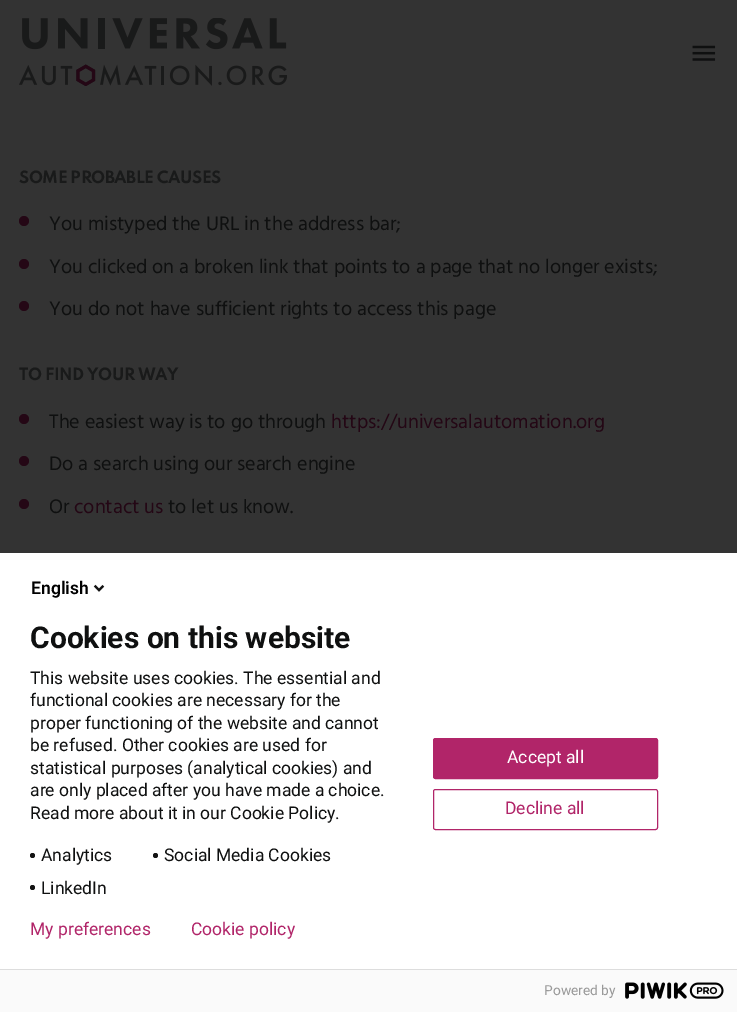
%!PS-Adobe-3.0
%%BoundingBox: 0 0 737 1012
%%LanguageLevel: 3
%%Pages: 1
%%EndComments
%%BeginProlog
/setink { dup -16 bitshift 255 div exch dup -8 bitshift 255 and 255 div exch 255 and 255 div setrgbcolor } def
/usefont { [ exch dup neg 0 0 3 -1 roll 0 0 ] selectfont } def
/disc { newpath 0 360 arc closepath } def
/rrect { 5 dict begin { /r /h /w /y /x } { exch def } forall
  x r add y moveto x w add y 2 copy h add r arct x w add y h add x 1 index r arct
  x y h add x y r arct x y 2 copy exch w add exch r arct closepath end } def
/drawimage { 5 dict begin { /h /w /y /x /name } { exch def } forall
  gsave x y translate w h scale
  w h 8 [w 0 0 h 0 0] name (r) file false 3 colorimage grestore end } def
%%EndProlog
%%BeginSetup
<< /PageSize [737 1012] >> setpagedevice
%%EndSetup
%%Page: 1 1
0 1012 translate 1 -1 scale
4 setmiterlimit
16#333333 setink
0 0 737 1012 rectfill
(img1.raw) 19 18 268 68 drawimage
(img2.raw) 692 45 24 16 drawimage
/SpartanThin-Bold 15 usefont
16#191A1A setink
19 183 moveto -0.5 0 (SOME PROBABLE CAUSES) ashow
16#240715 setink
24 221 5 disc fill
/Hind-Regular 20 usefont
16#0F1010 setink
49 230 moveto (You mistyped the URL in the address bar;) show
16#240715 setink
24 264 5 disc fill
16#0F1010 setink
49 273 moveto (You clicked on a broken link that points to a page that no longer exists;) show
16#240715 setink
24 306 5 disc fill
16#0F1010 setink
49 315 moveto (You do not have sufficient rights to access this page) show
/SpartanThin-Bold 15 usefont
16#191A1A setink
19 380 moveto -0.5 0 (TO FIND YOUR WAY) ashow
16#240715 setink
24 419 5 disc fill
/Hind-Regular 20 usefont
16#0F1010 setink
49 428 moveto (The easiest way is to go through) show
16#240715 setink
331 428 moveto (https://universalautomation.org) show
24 461 5 disc fill
16#0F1010 setink
49 470 moveto (Do a search using our search engine) show
16#240715 setink
24 504 5 disc fill
16#0F1010 setink
49 513 moveto (Or) show
16#240715 setink
74 513 moveto (contact us) show
16#0F1010 setink
168 513 moveto (to let us know.) show
16#FFFFFF setink
0 553 737 416 rectfill
/Roboto-SemiBold 17.5 usefont
16#000000 setink
31 594 moveto (English) show
(img3.raw) 93 584 12 8 drawimage
/Roboto-Bold 30 usefont
16#0F1010 setink
30 648 moveto (Cookies on this website) show
/Roboto-Regular 17.5 usefont
[
    [(This website uses cookies. The essential and) 30 684]
    [(functional cookies are necessary for the) 30 706]
    [(proper functioning of the website and cannot) 30 729]
    [(be refused. Other cookies are used for) 30 751]
    [(statistical purposes \(analytical cookies\) and) 30 774]
    [(are only placed after you have made a choice.) 30 796]
    [(Read more about it in our Cookie Policy.) 30 819]
] { aload pop moveto show } forall
16#131313 setink
32.5 855.5 2.5 disc fill
16#0F1010 setink
41 861 moveto (Analytics) show
16#131313 setink
155.5 855.5 2.5 disc fill
16#0F1010 setink
164 861 moveto (Social Media Cookies) show
16#131313 setink
32.5 887.5 2.5 disc fill
16#0F1010 setink
41 894 moveto (LinkedIn) show
16#B12569 setink
433.5 738.5 224 40 2 rrect gsave fill grestore
stroke
16#FFFFFF setink
507 763 moveto (Accept all) show
16#B12569 setink
433.5 789.5 224 40 2 rrect stroke
[
    [(Decline all) 505 814]
    [(My preferences) 30 935]
    [(Cookie policy) 191 935]
] { aload pop moveto show } forall
16#FAFAFA setink
0 970 737 42 rectfill
16#DDDDDD setink
0 969 737 1 rectfill
/Roboto-Regular 13.75 usefont
16#999999 setink
544 995 moveto (Powered by) show
(img4.raw) 625 982 99 17 drawimage
showpage
%%EOF
